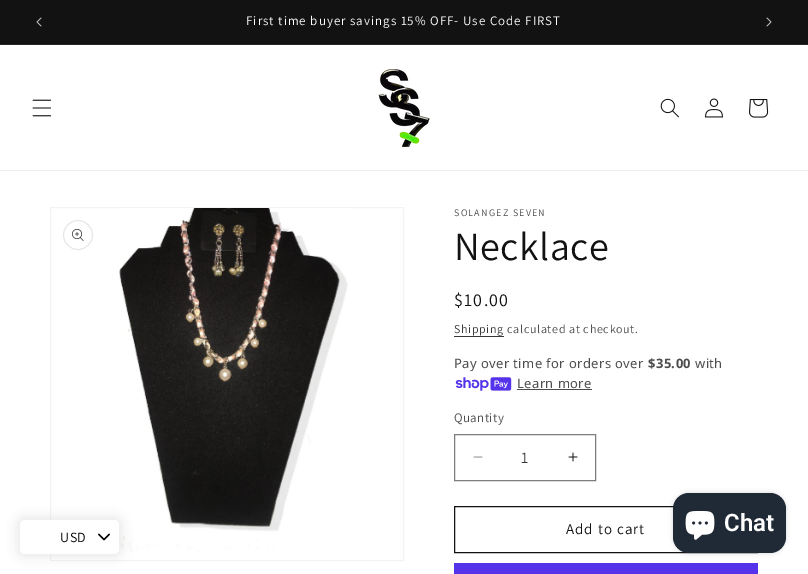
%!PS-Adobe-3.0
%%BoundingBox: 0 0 808 574
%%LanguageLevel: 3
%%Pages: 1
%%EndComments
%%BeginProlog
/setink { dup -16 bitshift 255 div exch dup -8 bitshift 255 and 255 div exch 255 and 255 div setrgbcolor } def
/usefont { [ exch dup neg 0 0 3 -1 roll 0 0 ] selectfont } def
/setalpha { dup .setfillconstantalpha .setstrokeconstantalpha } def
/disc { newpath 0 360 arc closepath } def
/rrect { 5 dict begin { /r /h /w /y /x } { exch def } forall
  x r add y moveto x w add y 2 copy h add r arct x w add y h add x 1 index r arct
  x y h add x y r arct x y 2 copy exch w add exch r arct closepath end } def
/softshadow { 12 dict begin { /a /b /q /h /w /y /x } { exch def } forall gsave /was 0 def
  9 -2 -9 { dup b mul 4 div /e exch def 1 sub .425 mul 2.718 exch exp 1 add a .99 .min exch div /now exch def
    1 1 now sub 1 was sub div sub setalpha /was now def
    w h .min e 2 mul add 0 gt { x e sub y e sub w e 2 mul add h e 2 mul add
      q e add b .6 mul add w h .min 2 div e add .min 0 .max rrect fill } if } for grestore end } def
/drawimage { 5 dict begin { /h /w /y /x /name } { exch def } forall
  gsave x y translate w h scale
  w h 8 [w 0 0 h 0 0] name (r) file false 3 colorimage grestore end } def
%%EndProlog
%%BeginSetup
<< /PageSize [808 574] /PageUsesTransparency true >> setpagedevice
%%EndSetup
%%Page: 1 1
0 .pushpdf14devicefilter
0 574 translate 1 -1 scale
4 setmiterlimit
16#FFFFFF setink
0 0 808 574 rectfill
16#121212 setink
0 0 808 44 rectfill
16#252525 setink
0 44 808 1 rectfill
(img1.raw) 36 17 6 10 drawimage
/Assistant-Regular 13 usefont
16#FFFFFF setink
246 25 moveto 1 0 (First time buyer savings 15% OFF- Use Code FIRST) ashow
(img2.raw) 766 17 6 10 drawimage
16#ECECEC setink
0 170 808 1 rectfill
(img3.raw) 32 99 20 18 drawimage
(img4.raw) 378 69 52 79 drawimage
(img5.raw) 660 98 19 20 drawimage
(img6.raw) 705 98 18 20 drawimage
(img7.raw) 749 99 20 19 drawimage
16#F3F3F3 setink
50.5 207.5 353 353 rectstroke
16#E7E7E7 setink
78 235 14.5 disc stroke
(img8.raw) 72 229 12 12 drawimage
(img9.raw) 119 208 229 344 drawimage
/Assistant-Regular 10 usefont
16#4D4D4D setink
454 216 moveto 1.25 0 (SOLANGEZ SEVEN) ashow
/Assistant-Regular 40 usefont
16#121212 setink
454 260 moveto 0.5 0 (Necklace) ashow
/Assistant-Regular 18 usefont
454 306 moveto 1.25 0 ($10.00) ashow
/Assistant-Regular 12 usefont
16#363636 setink
454 333 moveto 0.7 0 (Shipping) ashow
454 336 50 1 rectfill
16#4D4D4D setink
507 333 moveto 0.7 0 (calculated at checkout.) ashow
/NotoSans-Regular 13 usefont
454 368 moveto 0.4 0 (Pay over time for orders over) ashow
/NotoSans-Bold 13 usefont
648 368 moveto 0.4 0 ($35.00) ashow
/NotoSans-Regular 13 usefont
695 368 moveto 0.4 0 (with) ashow
(img10.raw) 455 377 57 14 drawimage
517 388 moveto 0.4 0 (Learn more) ashow
517 389 75 1 rectfill
/Assistant-Regular 13 usefont
454 422 moveto 0.4 0 (Quantity) ashow
(img11.raw) 473 456 10 2 drawimage
(img12.raw) 568 452 10 10 drawimage
16#7D7D7D setink
454.5 434.5 141 46 rectstroke
/Assistant-Regular 16 usefont
16#363636 setink
521 463 moveto (1) show
16#121212 setink
454.5 506.5 303 46 rectstroke
/Assistant-Regular 15 usefont
566 534 moveto 1 0 (Add to cart) ashow
16#5433EB setink
454 563 304 11 rectfill
16#000000 setink
673 493 113 60 16 2.5 0.15 softshadow
16#202A36 setink
673 493 113 60 16 rrect fill
(img13.raw) 685 511 30 29 drawimage
/Roboto-SemiBold 24 usefont
16#FFFFFF setink
724 531 moveto (Chat) show
16#3C3C3C setink
16 516 107 42 9 5 0.09 softshadow
16#FFFFFF setink
20 520 99 34 5 rrect fill
/Assistant-Regular 14 usefont
16#000000 setink
60 542 moveto 0.5 0 (USD) ashow
(img14.raw) 98 533 12 8 drawimage
.poppdf14devicefilter showpage
%%EOF
